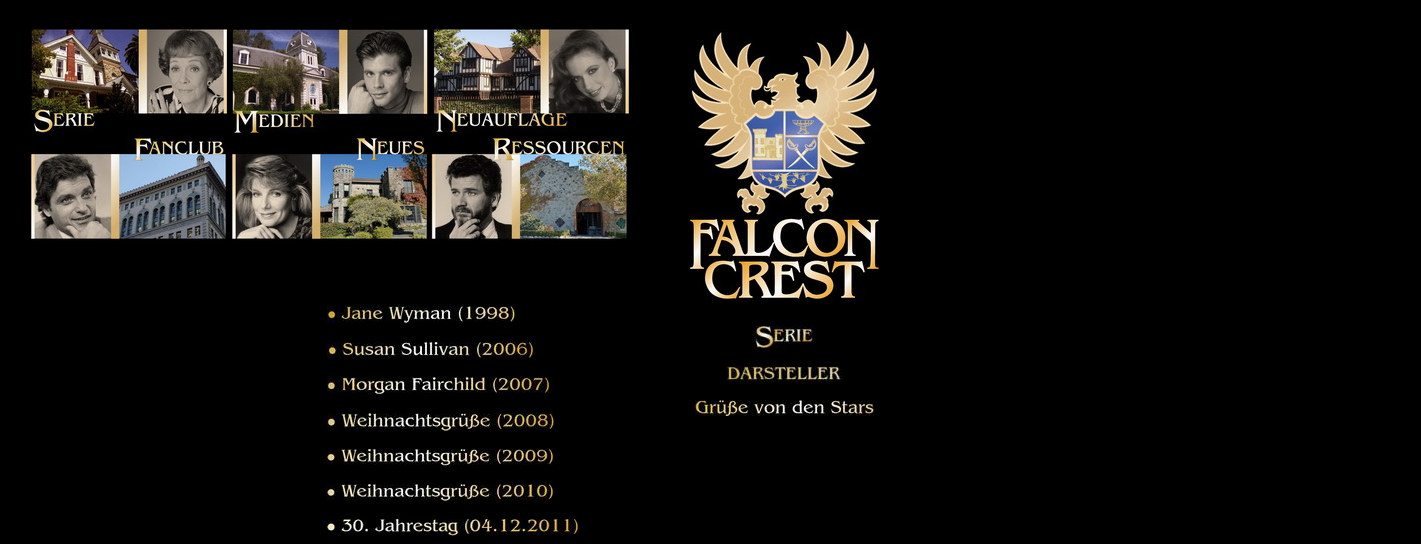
%!PS-Adobe-3.0
%%BoundingBox: 0 0 1421 544
%%LanguageLevel: 3
%%Pages: 1
%%EndComments
%%BeginProlog
/setink { dup -16 bitshift 255 div exch dup -8 bitshift 255 and 255 div exch 255 and 255 div setrgbcolor } def
/drawimage { 5 dict begin { /h /w /y /x /name } { exch def } forall
  gsave x y translate w h scale
  w h 8 [w 0 0 h 0 0] name (r) file false 3 colorimage grestore end } def
%%EndProlog
%%BeginSetup
<< /PageSize [1421 544] >> setpagedevice
%%EndSetup
%%Page: 1 1
0 544 translate 1 -1 scale
4 setmiterlimit
16#000000 setink
0 0 1421 544 rectfill
(img1.raw) 30 29 197 104 drawimage
(img2.raw) 232 29 196 104 drawimage
(img3.raw) 432 29 197 104 drawimage
(img4.raw) 30 137 196 104 drawimage
(img5.raw) 231 137 196 104 drawimage
(img6.raw) 431 137 196 104 drawimage
(img7.raw) 327 306 188 18 drawimage
(img8.raw) 327 342 206 17 drawimage
(img9.raw) 327 377 222 18 drawimage
(img10.raw) 327 413 227 18 drawimage
(img11.raw) 327 449 226 17 drawimage
(img12.raw) 327 484 226 17 drawimage
(img13.raw) 327 519 251 17 drawimage
(img14.raw) 689 29 190 272 drawimage
(img15.raw) 754 326 60 22 drawimage
(img16.raw) 726 366 117 16 drawimage
(img17.raw) 695 400 179 16 drawimage
showpage
%%EOF
